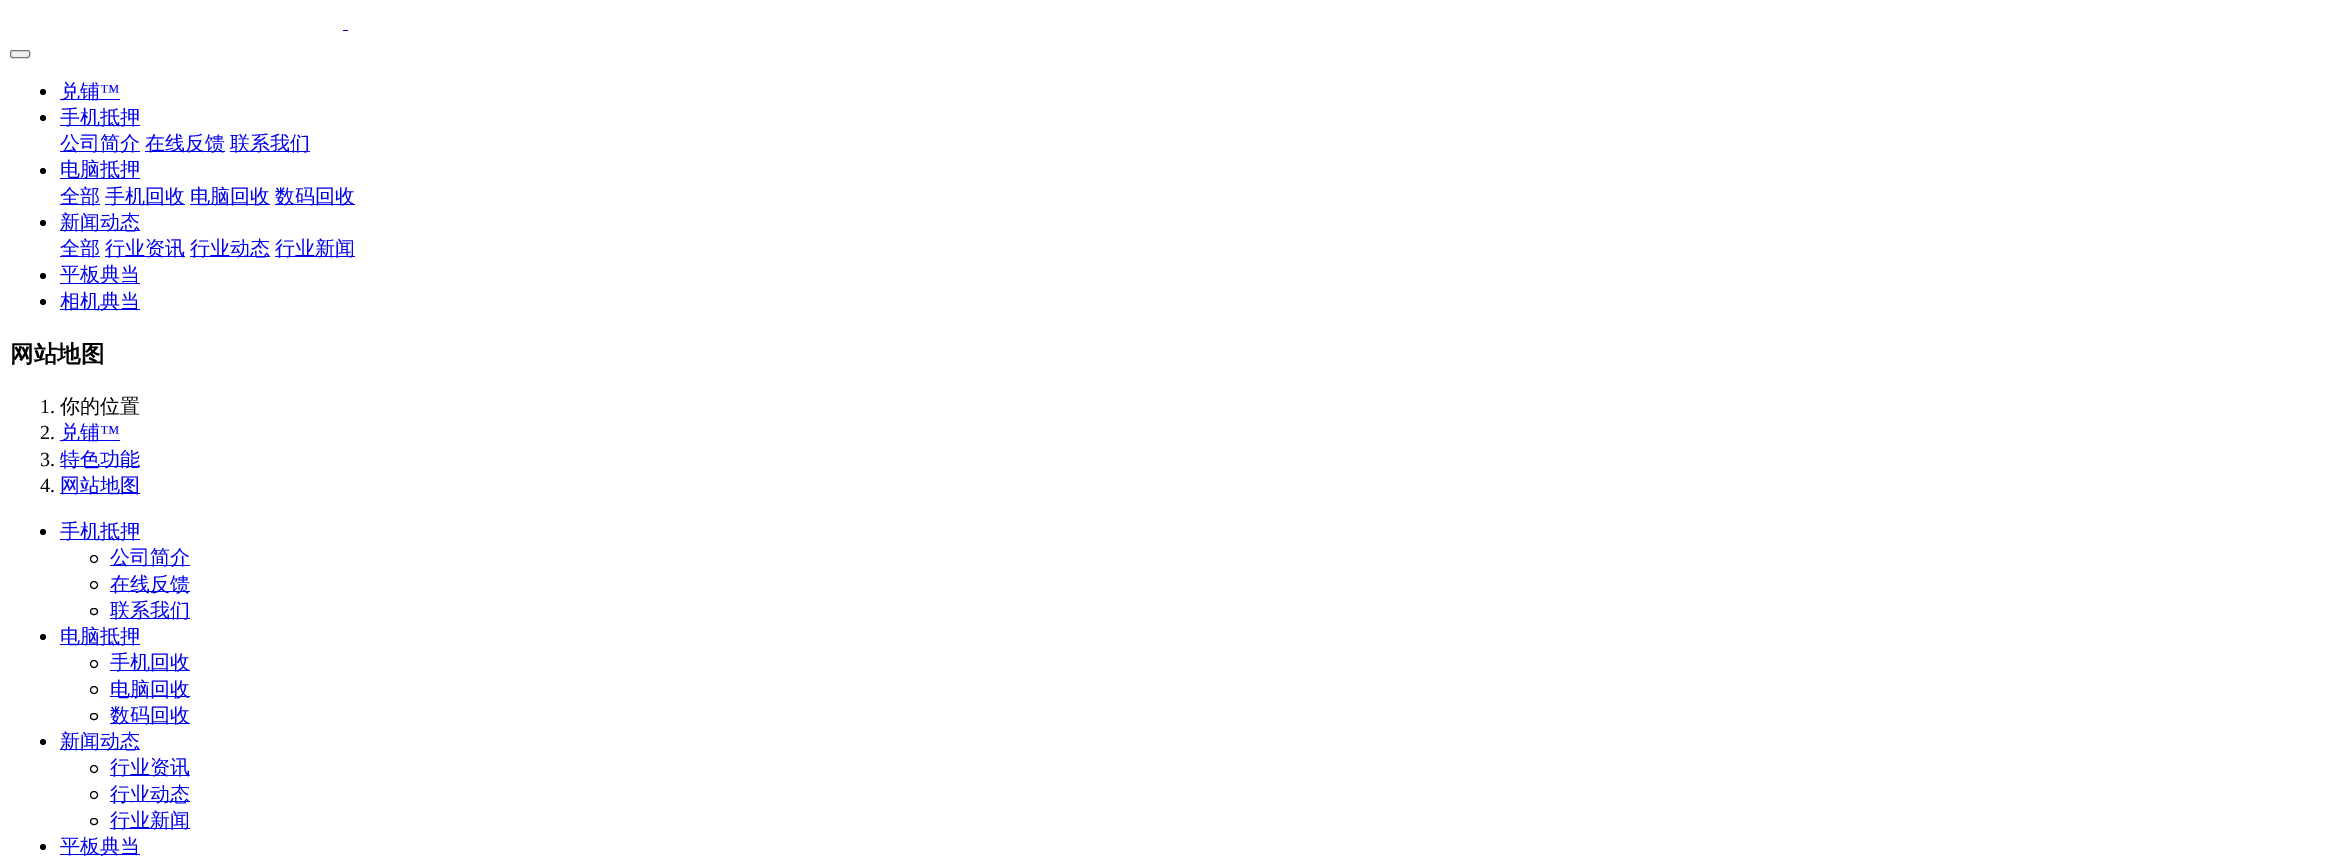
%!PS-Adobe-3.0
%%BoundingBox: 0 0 2336 861
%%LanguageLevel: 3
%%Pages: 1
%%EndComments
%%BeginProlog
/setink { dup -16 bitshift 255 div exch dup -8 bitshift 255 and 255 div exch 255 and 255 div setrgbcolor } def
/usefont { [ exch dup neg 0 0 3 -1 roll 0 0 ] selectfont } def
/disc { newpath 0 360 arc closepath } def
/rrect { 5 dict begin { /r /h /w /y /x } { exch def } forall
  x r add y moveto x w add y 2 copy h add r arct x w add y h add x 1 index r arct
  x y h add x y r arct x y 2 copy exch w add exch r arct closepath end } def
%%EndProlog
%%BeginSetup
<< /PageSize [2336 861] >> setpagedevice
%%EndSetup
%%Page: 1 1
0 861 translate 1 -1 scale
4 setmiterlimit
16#FFFFFF setink
0 0 2336 861 rectfill
16#0000EE setink
343 30 5 1 rectfill
16#EFEFEF setink
10.5 50.5 19 7 2 rrect gsave fill grestore
16#767676 setink
stroke
16#000000 setink
43 92 3 disc fill
16#0000EE setink
60 99 60 1 rectfill
/WenQuanYiZenHei-Medium 20 usefont
60 98 moveto (兑铺) show
/LiberationSerif-Regular 20 usefont
100 98 moveto (™) show
16#000000 setink
43 118 3 disc fill
16#0000EE setink
60 125 80 1 rectfill
/WenQuanYiZenHei-Medium 20 usefont
60 124 moveto (手机抵押) show
60 151 80 1 rectfill
60 150 moveto (公司简介) show
145 151 80 1 rectfill
145 150 moveto (在线反馈) show
230 151 80 1 rectfill
230 150 moveto (联系我们) show
16#000000 setink
43 171 3 disc fill
16#0000EE setink
60 178 80 1 rectfill
60 176 moveto (电脑抵押) show
60 204 40 1 rectfill
60 203 moveto (全部) show
105 204 80 1 rectfill
105 203 moveto (手机回收) show
190 204 80 1 rectfill
190 203 moveto (电脑回收) show
275 204 80 1 rectfill
275 203 moveto (数码回收) show
16#000000 setink
43 223 3 disc fill
16#0000EE setink
60 230 80 1 rectfill
60 229 moveto (新闻动态) show
60 256 40 1 rectfill
60 255 moveto (全部) show
105 256 80 1 rectfill
105 255 moveto (行业资讯) show
190 256 80 1 rectfill
190 255 moveto (行业动态) show
275 256 80 1 rectfill
275 255 moveto (行业新闻) show
16#000000 setink
43 276 3 disc fill
16#0000EE setink
60 283 80 1 rectfill
60 281 moveto (平板典当) show
16#000000 setink
43 302 3 disc fill
16#0000EE setink
60 309 80 1 rectfill
60 308 moveto (相机典当) show
/WenQuanYiZenHei-Bold 23.5 usefont
16#000000 setink
10 362 moveto (网站地图) show
/LiberationSerif-Regular 20 usefont
40 413 moveto (1.) show
/WenQuanYiZenHei-Medium 20 usefont
60 413 moveto (你的位置) show
/LiberationSerif-Regular 20 usefont
40 439 moveto (2.) show
16#0000EE setink
60 440 60 1 rectfill
/WenQuanYiZenHei-Medium 20 usefont
60 439 moveto (兑铺) show
/LiberationSerif-Regular 20 usefont
100 439 moveto (™) show
16#000000 setink
40 466 moveto (3.) show
16#0000EE setink
60 466 80 1 rectfill
/WenQuanYiZenHei-Medium 20 usefont
60 466 moveto (特色功能) show
/LiberationSerif-Regular 20 usefont
16#000000 setink
40 492 moveto (4.) show
16#0000EE setink
60 493 80 1 rectfill
/WenQuanYiZenHei-Medium 20 usefont
60 492 moveto (网站地图) show
16#000000 setink
43 532 3 disc fill
16#0000EE setink
60 539 80 1 rectfill
60 538 moveto (手机抵押) show
16#000000 setink
94 559 3.5 disc stroke
16#0000EE setink
110 565 80 1 rectfill
110 564 moveto (公司简介) show
16#000000 setink
94 585 3.5 disc stroke
16#0000EE setink
110 591 80 1 rectfill
110 591 moveto (在线反馈) show
16#000000 setink
90.5 608.5 7 6 3 rrect stroke
16#0000EE setink
110 618 80 1 rectfill
110 617 moveto (联系我们) show
16#000000 setink
43 637 3 disc fill
16#0000EE setink
60 644 80 1 rectfill
60 643 moveto (电脑抵押) show
16#000000 setink
94 664 3.5 disc stroke
16#0000EE setink
110 670 80 1 rectfill
110 669 moveto (手机回收) show
16#000000 setink
94 690 3.5 disc stroke
16#0000EE setink
110 696 80 1 rectfill
110 696 moveto (电脑回收) show
16#000000 setink
90.5 713.5 7 6 3 rrect stroke
16#0000EE setink
110 723 80 1 rectfill
110 722 moveto (数码回收) show
16#000000 setink
43 742 3 disc fill
16#0000EE setink
60 749 80 1 rectfill
60 748 moveto (新闻动态) show
16#000000 setink
94 769 3.5 disc stroke
16#0000EE setink
110 775 80 1 rectfill
110 774 moveto (行业资讯) show
16#000000 setink
94 795 3.5 disc stroke
16#0000EE setink
110 801 80 1 rectfill
110 801 moveto (行业动态) show
16#000000 setink
90.5 818.5 7 6 3 rrect stroke
16#0000EE setink
110 828 80 1 rectfill
110 827 moveto (行业新闻) show
16#000000 setink
43 847 3 disc fill
16#0000EE setink
60 854 80 1 rectfill
60 853 moveto (平板典当) show
showpage
%%EOF
